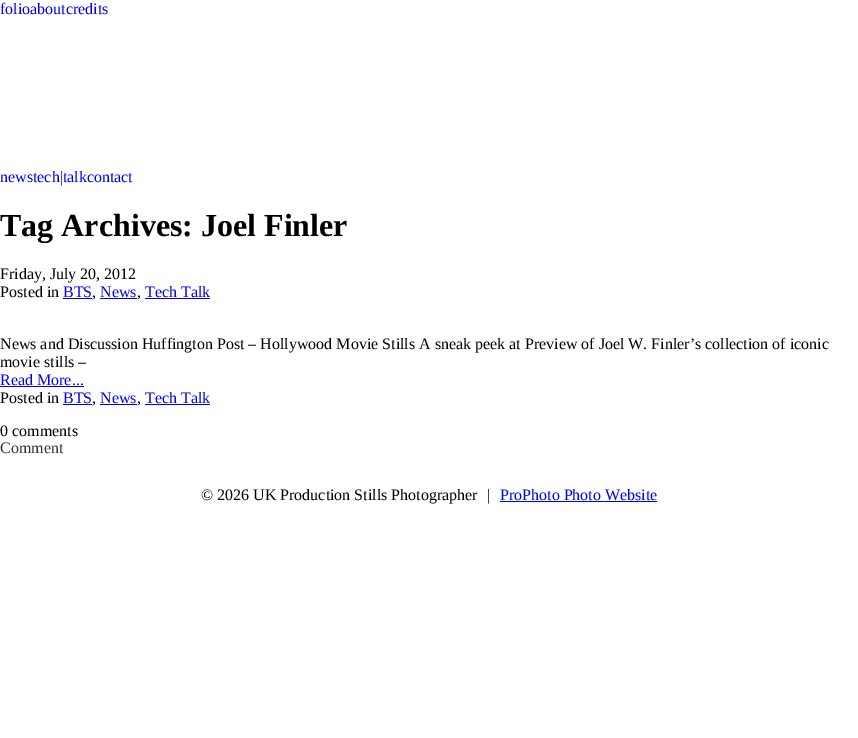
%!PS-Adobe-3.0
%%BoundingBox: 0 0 858 738
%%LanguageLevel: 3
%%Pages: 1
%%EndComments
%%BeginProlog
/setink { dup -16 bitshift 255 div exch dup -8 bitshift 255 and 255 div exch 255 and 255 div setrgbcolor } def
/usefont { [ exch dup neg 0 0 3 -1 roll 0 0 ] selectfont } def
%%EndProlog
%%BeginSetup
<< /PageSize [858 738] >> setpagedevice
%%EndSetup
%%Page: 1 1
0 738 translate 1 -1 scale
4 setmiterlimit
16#FFFFFF setink
0 0 858 738 rectfill
/LiberationSerif-Regular 16 usefont
16#0000EE setink
0 14 moveto (folioaboutcredits) show
0 182 moveto (newstech|talkcontact) show
/LiberationSerif-Bold 32 usefont
16#000000 setink
0 236 moveto (Tag Archives: Joel Finler) show
/LiberationSerif-Regular 16 usefont
0 279 moveto (Friday, July 20, 2012) show
0 297 moveto (Posted in) show
16#0000EE setink
63 297 moveto (BTS) show
16#000000 setink
92 297 moveto (,) show
16#0000EE setink
63 298 29 1 rectfill
100 297 moveto (News) show
16#000000 setink
137 297 moveto (,) show
16#0000EE setink
100 298 37 1 rectfill
145 298 65 1 rectfill
145 297 moveto (Tech Talk) show
16#000000 setink
0 349 moveto (News and Discussion Huffington Post – Hollywood Movie Stills A sneak peek at Preview of Joel W. Finler’s collection of iconic) show
0 367 moveto (movie stills –) show
16#0000EE setink
0 385 moveto (Read More...) show
0 386 84 1 rectfill
16#000000 setink
0 403 moveto (Posted in) show
16#0000EE setink
63 403 moveto (BTS) show
16#000000 setink
92 403 moveto (,) show
16#0000EE setink
63 404 29 1 rectfill
100 403 moveto (News) show
16#000000 setink
137 403 moveto (,) show
16#0000EE setink
100 404 37 1 rectfill
145 404 65 1 rectfill
145 403 moveto (Tech Talk) show
16#000000 setink
0 436 moveto (0 comments) show
16#333333 setink
0 453 moveto (Comment) show
16#000000 setink
201 500 moveto (© 2026 UK Production Stills Photographer) show
487 500 moveto (|) show
16#0000EE setink
500 500 moveto (ProPhoto Photo Website) show
500 501 157 1 rectfill
showpage
%%EOF
